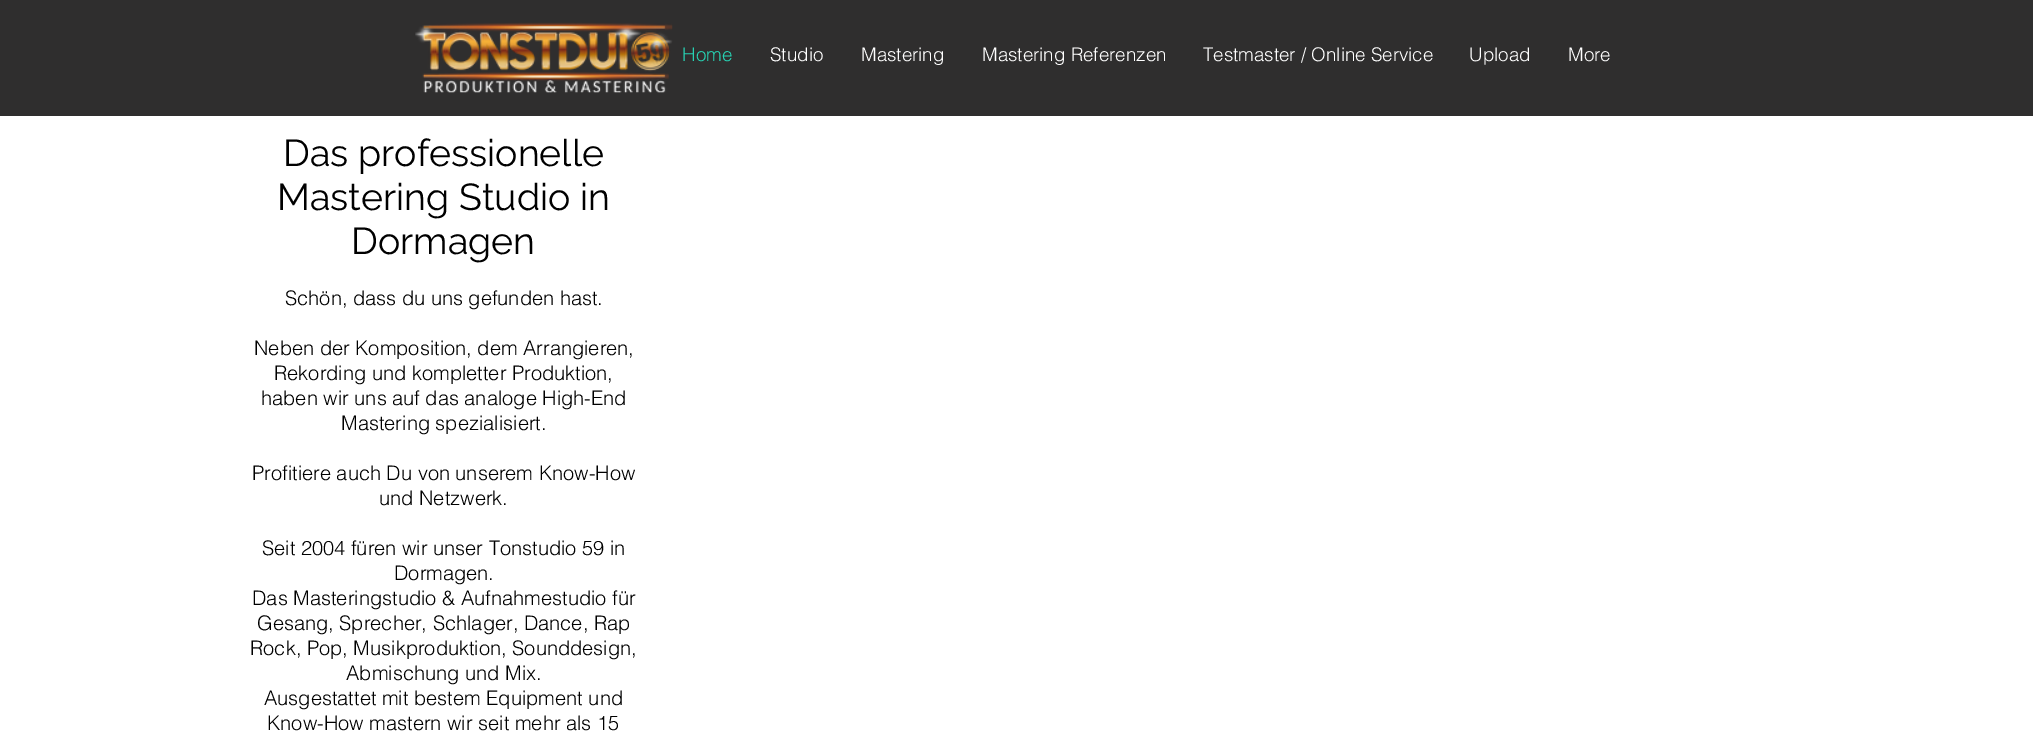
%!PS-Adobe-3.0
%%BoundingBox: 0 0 2033 731
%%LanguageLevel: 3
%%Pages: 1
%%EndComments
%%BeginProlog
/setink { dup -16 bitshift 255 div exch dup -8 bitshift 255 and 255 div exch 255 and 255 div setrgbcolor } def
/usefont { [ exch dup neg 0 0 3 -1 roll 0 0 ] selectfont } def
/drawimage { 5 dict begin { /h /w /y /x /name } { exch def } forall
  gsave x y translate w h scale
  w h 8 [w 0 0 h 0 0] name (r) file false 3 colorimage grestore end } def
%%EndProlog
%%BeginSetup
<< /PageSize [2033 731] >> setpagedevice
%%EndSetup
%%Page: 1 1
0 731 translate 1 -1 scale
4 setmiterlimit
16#FFFFFF setink
0 0 2033 731 rectfill
16#2F2E2E setink
0 0 2033 116 rectfill
(img1.raw) 415 22 258 71 drawimage
/helvetica-Light 18.75 usefont
16#27D3B4 setink
682 61 moveto (Home) show
16#FFFFFF setink
[
    [(Studio) 770 61]
    [(Mastering) 861 61]
    [(Mastering Referenzen) 982 61]
    [(Testmaster / Online Service) 1203 61]
    [(Upload) 1469 61]
    [(More) 1568 61]
] { aload pop moveto show } forall
/Raleway-Regular 37.5 usefont
16#000000 setink
[
    [(Das professionelle) 283 166]
    [(Mastering Studio in) 277 210]
    [(Dormagen) 351 254]
] { aload pop moveto show } forall
/helvetica-Light 20 usefont
[
    [(Schön, dass du uns gefunden hast.) 285 305]
    [(Neben der Komposition, dem Arrangieren,) 254 355]
    [(Rekording und kompletter Produktion,) 274 380]
    [(haben wir uns auf das analoge High-End) 261 405]
    [(Mastering spezialisiert.) 341 430]
    [(Profitiere auch Du von unserem Know-How) 252 480]
    [(und Netzwerk.) 379 505]
    [(Seit 2004 füren wir unser Tonstudio 59 in) 262 555]
    [(Dormagen.) 394 580]
    [(Das Masteringstudio & Aufnahmestudio für) 252 605]
    [(Gesang, Sprecher, Schlager, Dance, Rap) 257 630]
    [(Rock, Pop, Musikproduktion, Sounddesign,) 250 655]
    [(Abmischung und Mix.) 346 680]
    [(Ausgestattet mit bestem Equipment und) 264 705]
    [(Know-How mastern wir seit mehr als 15) 267 730]
] { aload pop moveto show } forall
showpage
%%EOF
